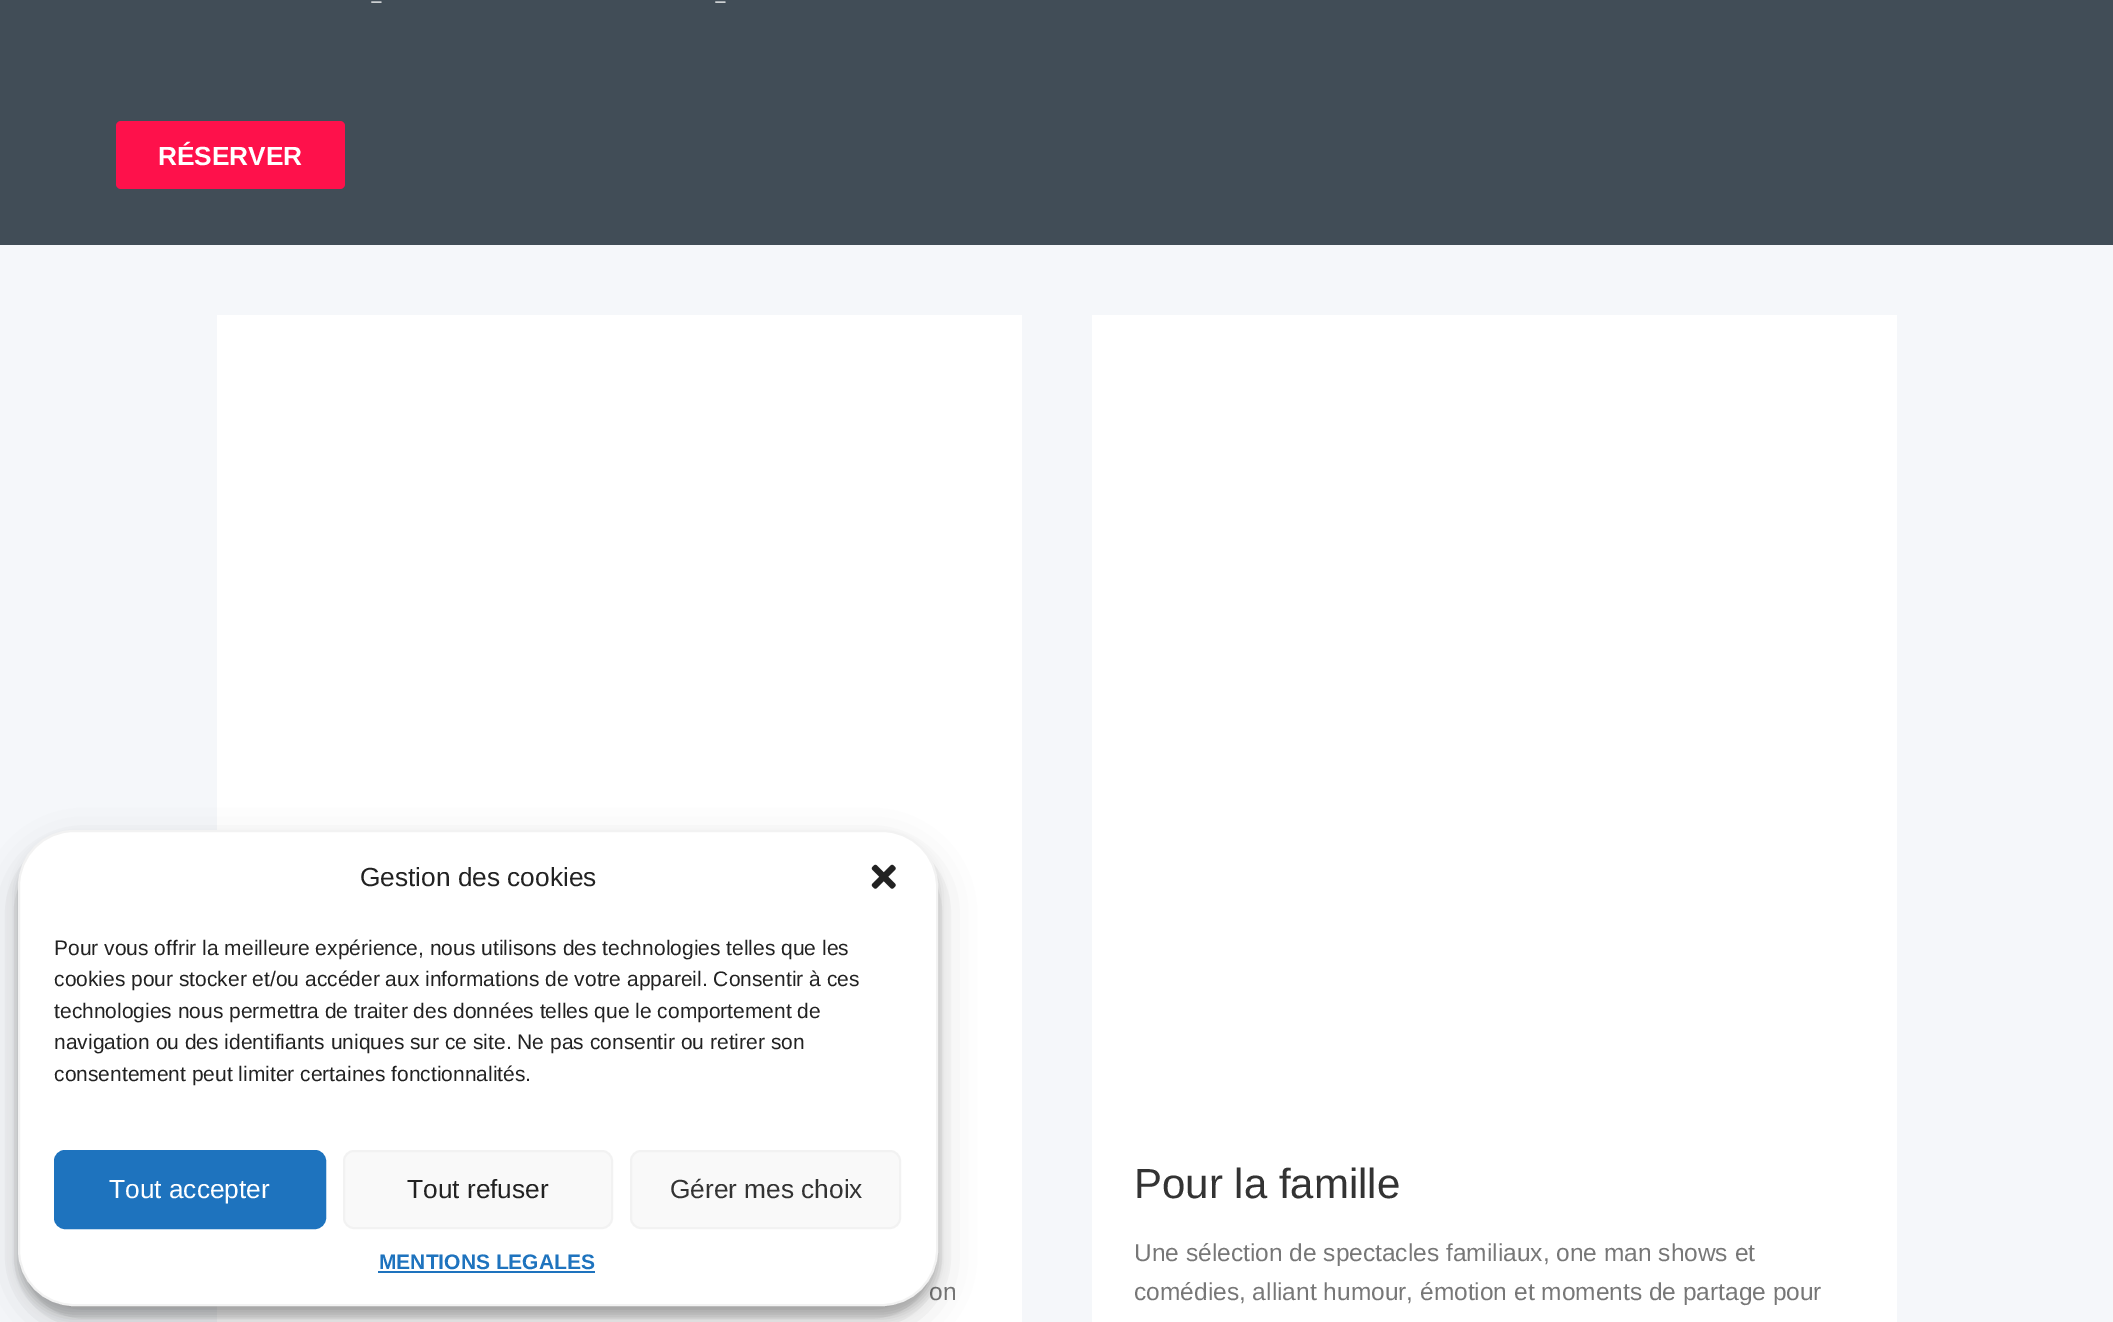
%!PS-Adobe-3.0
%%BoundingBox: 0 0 2113 1322
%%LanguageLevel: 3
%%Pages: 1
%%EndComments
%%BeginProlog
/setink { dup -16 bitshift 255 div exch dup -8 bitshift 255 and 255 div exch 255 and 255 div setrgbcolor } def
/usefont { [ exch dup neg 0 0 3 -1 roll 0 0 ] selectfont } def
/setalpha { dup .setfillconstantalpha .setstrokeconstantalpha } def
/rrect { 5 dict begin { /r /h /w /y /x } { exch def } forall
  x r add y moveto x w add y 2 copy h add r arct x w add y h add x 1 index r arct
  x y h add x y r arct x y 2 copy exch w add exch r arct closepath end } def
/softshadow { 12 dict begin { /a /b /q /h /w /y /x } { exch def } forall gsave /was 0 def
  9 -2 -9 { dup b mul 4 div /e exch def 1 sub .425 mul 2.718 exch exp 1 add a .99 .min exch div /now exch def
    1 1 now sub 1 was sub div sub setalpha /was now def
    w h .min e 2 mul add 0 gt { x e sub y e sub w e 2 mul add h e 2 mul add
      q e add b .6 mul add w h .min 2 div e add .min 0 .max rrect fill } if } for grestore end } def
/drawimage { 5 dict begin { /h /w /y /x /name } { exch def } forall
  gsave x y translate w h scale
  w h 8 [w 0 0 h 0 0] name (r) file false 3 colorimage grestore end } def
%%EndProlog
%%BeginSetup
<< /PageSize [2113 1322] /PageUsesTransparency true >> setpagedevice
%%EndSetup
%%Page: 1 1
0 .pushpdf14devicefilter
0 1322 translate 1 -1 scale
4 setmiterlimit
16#414D57 setink
0 0 2113 1322 rectfill
/RobotoMono-Light 28 usefont
16#FFFFFF setink
368 11 moveto 6 0 (-) ashow
712 11 moveto 6 0 (-) ashow
16#FE114B setink
116 121 229 68 5 rrect fill
/LiberationSans-Bold 26.25 usefont
16#FFFFFF setink
158 165 moveto (RÉSERVER) show
16#F5F7FA setink
0 245 2113 1077 rectfill
16#FFFFFF setink
217 315 805 1007 rectfill
/LiberationSans-Regular 24.5 usefont
16#777777 setink
929 1300 moveto (on) show
16#FFFFFF setink
1092 315 805 1007 rectfill
/LiberationSans-Regular 42 usefont
16#333333 setink
1134 1198 moveto (Pour la famille) show
/LiberationSans-Regular 24.5 usefont
16#777777 setink
1134 1261 moveto (Une sélection de spectacles familiaux, one man shows et) show
1134 1300 moveto (comédies, alliant humour, émotion et moments de partage pour) show
16#000000 setink
18 840 920 476 56 5 0.23 softshadow
18 847 920 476 56 17.5 0.19 softshadow
16#FFFFFF setink
19 831 918 474 55 rrect gsave fill grestore
16#F2F2F2 setink
2 setlinewidth
stroke
/LiberationSans-Regular 26.25 usefont
16#222222 setink
360 886 moveto (Gestion des cookies) show
(img1.raw) 871 864 25 25 drawimage
/LiberationSans-Regular 21 usefont
[
    [(Pour vous offrir la meilleure expérience, nous utilisons des technologies telles que les) 54 955]
    [(cookies pour stocker et/ou accéder aux informations de votre appareil. Consentir à ces) 54 986]
    [(technologies nous permettra de traiter des données telles que le comportement de) 54 1018]
    [(navigation ou des identifiants uniques sur ce site. Ne pas consentir ou retirer son) 54 1049]
    [(consentement peut limiter certaines fonctionnalités.) 54 1081]
] { aload pop moveto show } forall
16#1E73BE setink
55 1151 270 77 10 rrect gsave fill grestore
stroke
/LiberationSans-Regular 26.25 usefont
16#FFFFFF setink
109 1198 moveto (Tout accepter) show
16#F9F9F9 setink
344 1151 268 77 10 rrect gsave fill grestore
16#F2F2F2 setink
stroke
16#222222 setink
407 1198 moveto (Tout refuser) show
16#F9F9F9 setink
631 1151 269 77 10 rrect gsave fill grestore
16#F2F2F2 setink
stroke
16#333333 setink
670 1198 moveto (Gérer mes choix) show
/LiberationSans-Bold 21 usefont
16#1E73BE setink
379 1269 moveto (MENTIONS LEGALES) show
378 1271 217 2 rectfill
.poppdf14devicefilter showpage
%%EOF
